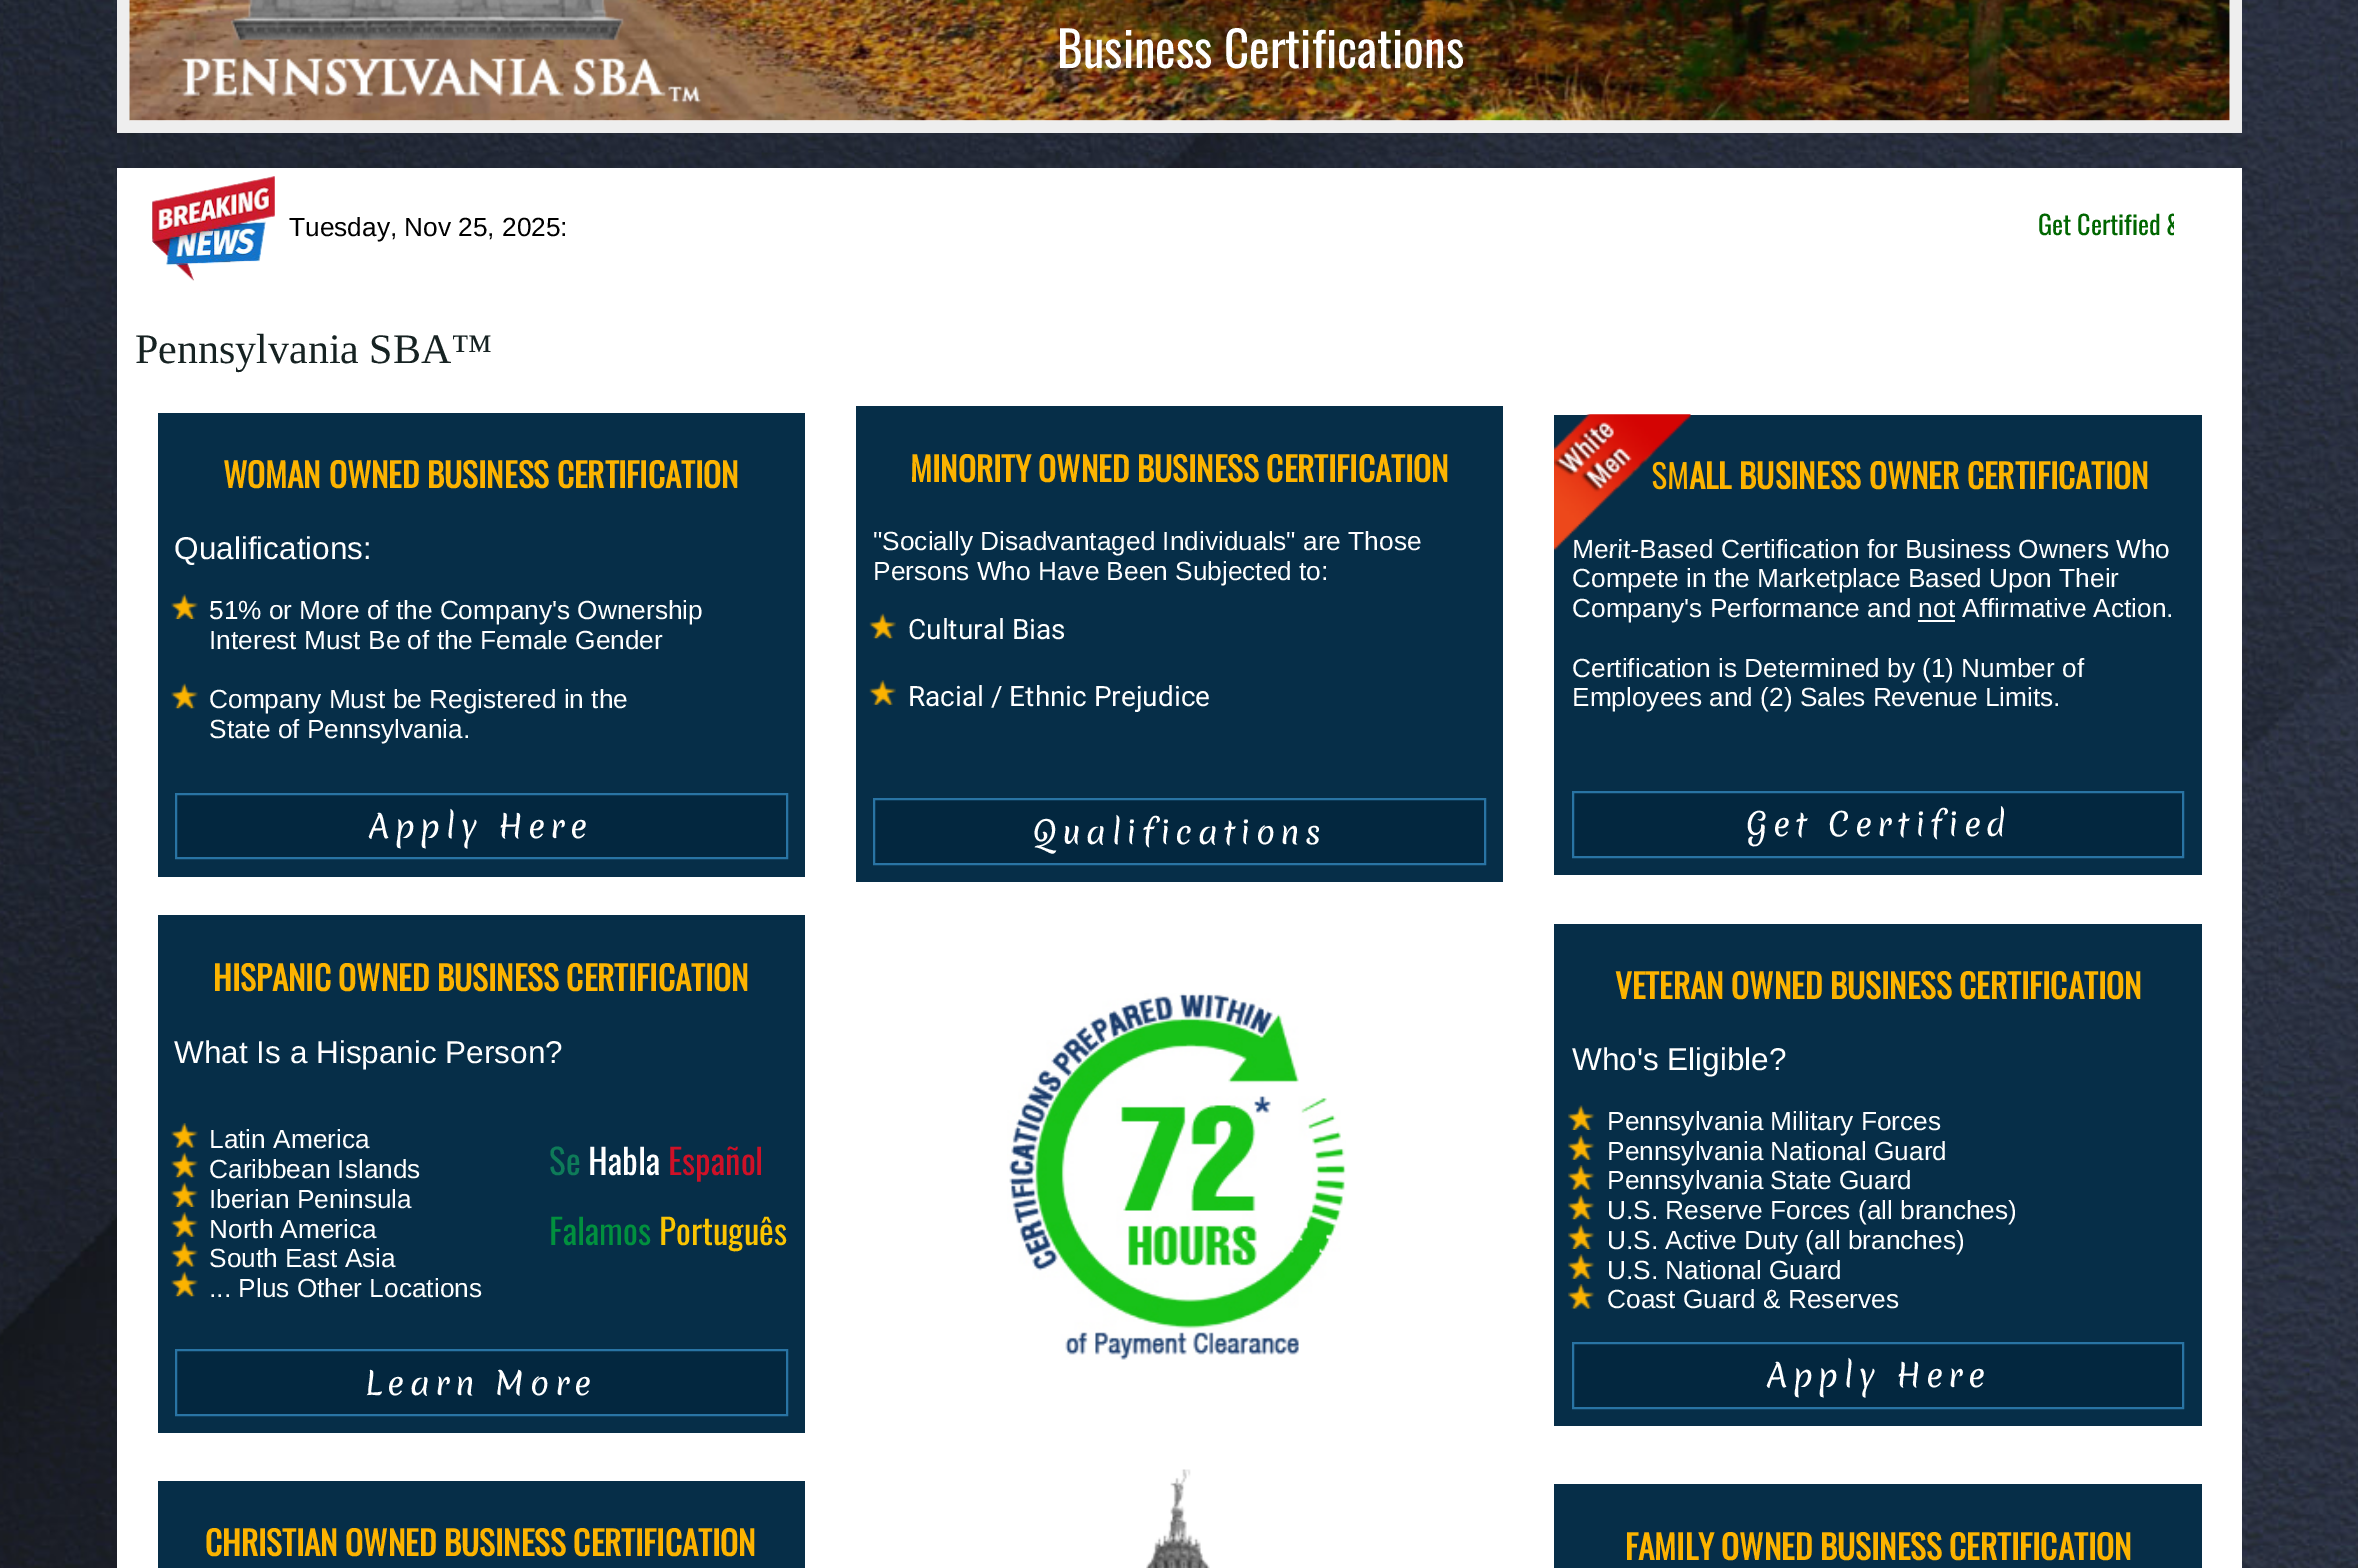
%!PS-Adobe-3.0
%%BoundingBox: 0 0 2358 1568
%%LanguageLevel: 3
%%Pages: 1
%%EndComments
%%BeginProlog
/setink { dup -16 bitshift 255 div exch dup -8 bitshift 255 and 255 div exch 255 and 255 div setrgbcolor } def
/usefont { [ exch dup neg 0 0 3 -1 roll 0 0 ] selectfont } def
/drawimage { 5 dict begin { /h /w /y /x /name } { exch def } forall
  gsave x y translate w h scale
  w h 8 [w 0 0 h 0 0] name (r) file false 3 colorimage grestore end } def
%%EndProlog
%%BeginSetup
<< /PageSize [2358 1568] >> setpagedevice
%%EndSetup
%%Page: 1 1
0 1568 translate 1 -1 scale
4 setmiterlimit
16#FFFFFF setink
0 0 2358 1568 rectfill
(img1.raw) 0 0 2358 1568 drawimage
16#EEEEEE setink
117 0 2125 133 rectfill
16#FFFFFF setink
130 0 2100 121 rectfill
(img2.raw) 129 0 2101 121 drawimage
/Oswald-Regular 49 usefont
1057 68 moveto (Business Certifications) show
117 168 2125 1400 rectfill
(img3.raw) 152 176 123 105 drawimage
/LiberationSans-Regular 26.25 usefont
16#000000 setink
289 236 moveto (Tuesday, Nov 25, 2025:) show
gsave
616 203 1558 39 rectclip
/Oswald-Regular 26.25 usefont
16#006600 setink
2038 235 moveto (Get Certified &) show
grestore
/LiberationSerif-Regular 42 usefont
16#162222 setink
135 363 moveto (Pennsylvania SBA™) show
16#062E48 setink
158 413 647 464 rectfill
/Oswald-Bold 33.25 usefont
16#FCB300 setink
223 488 moveto (WOMAN OWNED BUSINESS CERTIFICATION) show
/LiberationSans-Regular 31.5 usefont
16#FFFFFF setink
174 559 moveto (Qualifications:) show
(img4.raw) 171 594 27 25 drawimage
/LiberationSans-Regular 26.25 usefont
209 619 moveto (51% or More of the Company's Ownership) show
209 649 moveto (Interest Must Be of the Female Gender) show
(img5.raw) 171 683 27 26 drawimage
209 708 moveto (Company Must be Registered in the) show
209 738 moveto (State of Pennsylvania.) show
16#03273F setink
176 794 moveto 787 794 lineto 787 858 lineto 176 858 lineto closepath gsave fill grestore
16#2974A4 setink
2 setlinewidth
stroke
/Merienda-Regular 31.5 usefont
16#FFFFFF setink
369 838 moveto 5.25 0 (Apply Here) ashow
16#062E48 setink
856 406 647 476 rectfill
/Oswald-Bold 33.25 usefont
16#FCB300 setink
910 482 moveto (MINORITY OWNED BUSINESS CERTIFICATION) show
/LiberationSans-Regular 26.25 usefont
16#FFFFFF setink
873 550 moveto ("Socially Disadvantaged Individuals" are Those) show
873 580 moveto (Persons Who Have Been Subjected to:) show
(img6.raw) 869 613 27 26 drawimage
/Roboto-Regular 28 usefont
908 639 moveto (Cultural Bias) show
(img7.raw) 869 680 27 25 drawimage
908 706 moveto (Racial / Ethnic Prejudice) show
16#03273F setink
874 799 moveto 1485 799 lineto 1485 864 lineto 874 864 lineto closepath gsave fill grestore
16#2974A4 setink
stroke
/Merienda-Regular 31.5 usefont
16#FFFFFF setink
1032 844 moveto 5.25 0 (Qualifications) ashow
16#062E48 setink
1554 415 648 460 rectfill
/Oswald-Bold 33.25 usefont
16#FCB300 setink
1651 489 moveto (SMALL BUSINESS OWNER CERTIFICATION) show
/LiberationSans-Regular 26.25 usefont
16#FFFFFF setink
1572 558 moveto (Merit-Based Certification for Business Owners Who) show
(img8.raw) 1554 414 137 137 drawimage
1572 587 moveto (Compete in the Marketplace Based Upon Their) show
1572 617 moveto (Company's Performance and not Affirmative Action.) show
1918 620 37 2 rectfill
1572 677 moveto (Certification is Determined by \(1\) Number of) show
1572 706 moveto (Employees and \(2\) Sales Revenue Limits.) show
16#03273F setink
1573 792 moveto 2183 792 lineto 2183 857 lineto 1573 857 lineto closepath gsave fill grestore
16#2974A4 setink
stroke
/Merienda-Regular 31.5 usefont
16#FFFFFF setink
1746 836 moveto 5.25 0 (Get Certified) ashow
16#062E48 setink
158 915 647 518 rectfill
/Oswald-Bold 33.25 usefont
16#FCB300 setink
213 991 moveto (HISPANIC OWNED BUSINESS CERTIFICATION) show
/LiberationSans-Regular 31.5 usefont
16#FFFFFF setink
174 1063 moveto (What Is a Hispanic Person?) show
(img9.raw) 171 1123 27 25 drawimage
/LiberationSans-Regular 26.25 usefont
209 1148 moveto (Latin America) show
(img5.raw) 171 1152 27 26 drawimage
209 1178 moveto (Caribbean Islands) show
(img10.raw) 171 1182 27 25 drawimage
209 1208 moveto (Iberian Peninsula) show
(img11.raw) 171 1212 27 25 drawimage
209 1238 moveto (North America) show
(img9.raw) 171 1242 27 25 drawimage
209 1267 moveto (South East Asia) show
(img12.raw) 171 1271 27 26 drawimage
209 1297 moveto (... Plus Other Locations) show
/Oswald-Regular 35 usefont
16#0E7B59 setink
549 1175 moveto (Se) show
16#FFFFFF setink
588 1175 moveto (Habla) show
16#CE1127 setink
668 1175 moveto (Español) show
16#01903E setink
549 1245 moveto (Falamos) show
16#FAC402 setink
659 1245 moveto (Português) show
16#03273F setink
176 1350 moveto 787 1350 lineto 787 1415 lineto 176 1415 lineto closepath gsave fill grestore
16#2974A4 setink
stroke
/Merienda-Regular 31.5 usefont
16#FFFFFF setink
365 1395 moveto 5.25 0 (Learn More) ashow
(img13.raw) 1007 993 339 367 drawimage
16#062E48 setink
1554 924 648 502 rectfill
/Oswald-Bold 33.25 usefont
16#FCB300 setink
1615 999 moveto (VETERAN OWNED BUSINESS CERTIFICATION) show
/LiberationSans-Regular 31.5 usefont
16#FFFFFF setink
1572 1070 moveto (Who's Eligible?) show
(img14.raw) 1568 1105 27 25 drawimage
/LiberationSans-Regular 26.25 usefont
1607 1130 moveto (Pennsylvania Military Forces) show
(img15.raw) 1568 1135 27 25 drawimage
1607 1160 moveto (Pennsylvania National Guard) show
(img16.raw) 1568 1165 27 25 drawimage
1607 1189 moveto (Pennsylvania State Guard) show
(img17.raw) 1568 1194 27 26 drawimage
1607 1219 moveto (U.S. Reserve Forces \(all branches\)) show
(img18.raw) 1568 1224 27 25 drawimage
1607 1249 moveto (U.S. Active Duty \(all branches\)) show
(img15.raw) 1568 1254 27 25 drawimage
1607 1279 moveto (U.S. National Guard) show
(img16.raw) 1568 1284 27 25 drawimage
1607 1308 moveto (Coast Guard & Reserves) show
16#03273F setink
1573 1343 moveto 2183 1343 lineto 2183 1408 lineto 1573 1408 lineto closepath gsave fill grestore
16#2974A4 setink
stroke
/Merienda-Regular 31.5 usefont
16#FFFFFF setink
1767 1387 moveto 5.25 0 (Apply Here) ashow
16#062E48 setink
158 1481 647 87 rectfill
/Oswald-Bold 33.25 usefont
16#FCB300 setink
205 1556 moveto (CHRISTIAN OWNED BUSINESS CERTIFICATION) show
(img19.raw) 1146 1469 64 99 drawimage
16#062E48 setink
1554 1484 648 84 rectfill
16#FCB300 setink
1625 1560 moveto (FAMILY OWNED BUSINESS CERTIFICATION) show
showpage
%%EOF
